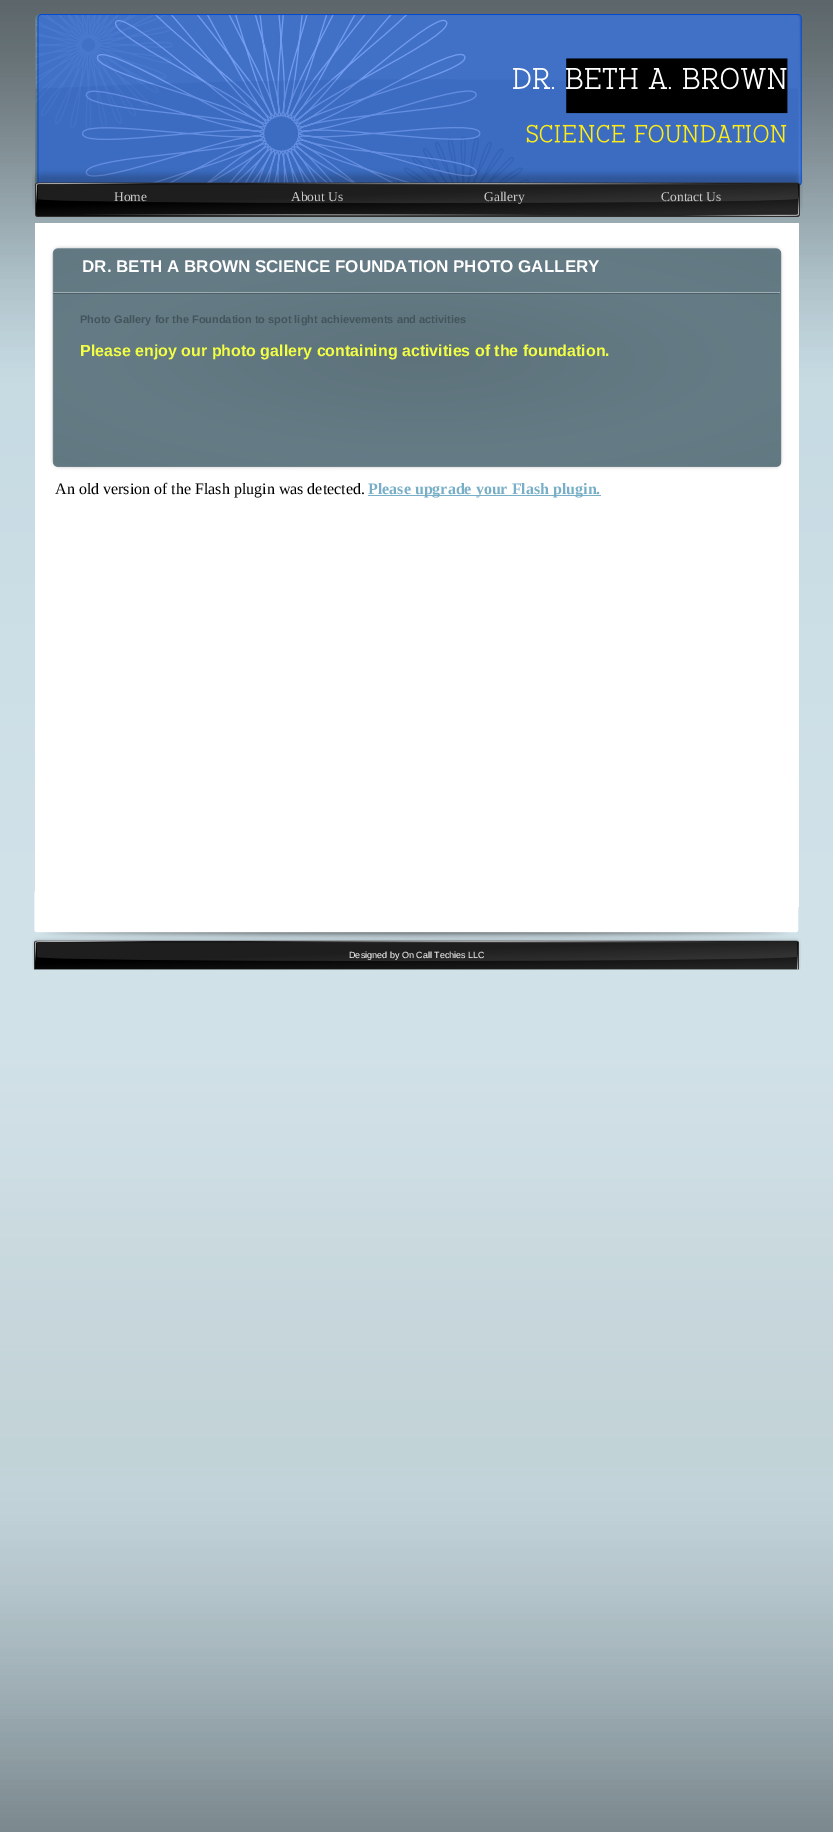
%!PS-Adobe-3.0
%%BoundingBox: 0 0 833 1832
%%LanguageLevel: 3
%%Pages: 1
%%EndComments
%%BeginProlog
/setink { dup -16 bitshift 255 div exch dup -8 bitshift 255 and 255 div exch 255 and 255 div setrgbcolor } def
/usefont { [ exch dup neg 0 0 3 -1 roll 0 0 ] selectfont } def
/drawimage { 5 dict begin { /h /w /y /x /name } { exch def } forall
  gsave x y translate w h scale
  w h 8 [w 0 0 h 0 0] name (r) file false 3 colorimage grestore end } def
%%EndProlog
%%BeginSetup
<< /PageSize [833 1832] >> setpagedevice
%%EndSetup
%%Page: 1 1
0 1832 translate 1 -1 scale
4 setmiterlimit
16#C4D9E2 setink
0 0 833 1832 rectfill
(img1.raw) 0 0 833 1832 drawimage
(img2.raw) 32 14 771 203 drawimage
/LiberationSerif-Regular 13.5 usefont
16#C9C8C8 setink
[
    [(Home) 114 201]
    [(About Us) 291 201]
    [(Gallery) 484 201]
    [(Contact Us) 661 201]
] { aload pop moveto show } forall
16#FFFFFF setink
35 223 764 22 rectfill
(img4.raw) 32 890 769 80 drawimage
(img3.raw) 35 245 764 662 drawimage
/LiberationSans-Bold 17 usefont
82 272 moveto (DR. BETH A BROWN SCIENCE FOUNDATION PHOTO GALLERY) show
16#9EADB4 setink
53 292 727 1 rectfill
16#4D5F67 setink
53 293 726 1 rectfill
/LiberationSans-Bold 11 usefont
16#42555C setink
80 323 moveto (Photo Gallery for the Foundation to spot light achievements and activities) show
/LiberationSans-Bold 16 usefont
16#F3FF43 setink
80 356 moveto (Please enjoy our photo gallery containing activities of the foundation.) show
/LiberationSerif-Regular 16 usefont
16#000000 setink
55 494 moveto (An old version of the Flash plugin was detected.) show
16#78AFC7 setink
368 495 233 1 rectfill
/LiberationSerif-Bold 16 usefont
368 494 moveto (Please upgrade your Flash plugin.) show
/LiberationSans-Regular 9 usefont
16#FFFFFF setink
349 958 moveto (Designed by On Call Techies LLC) show
showpage
%%EOF
